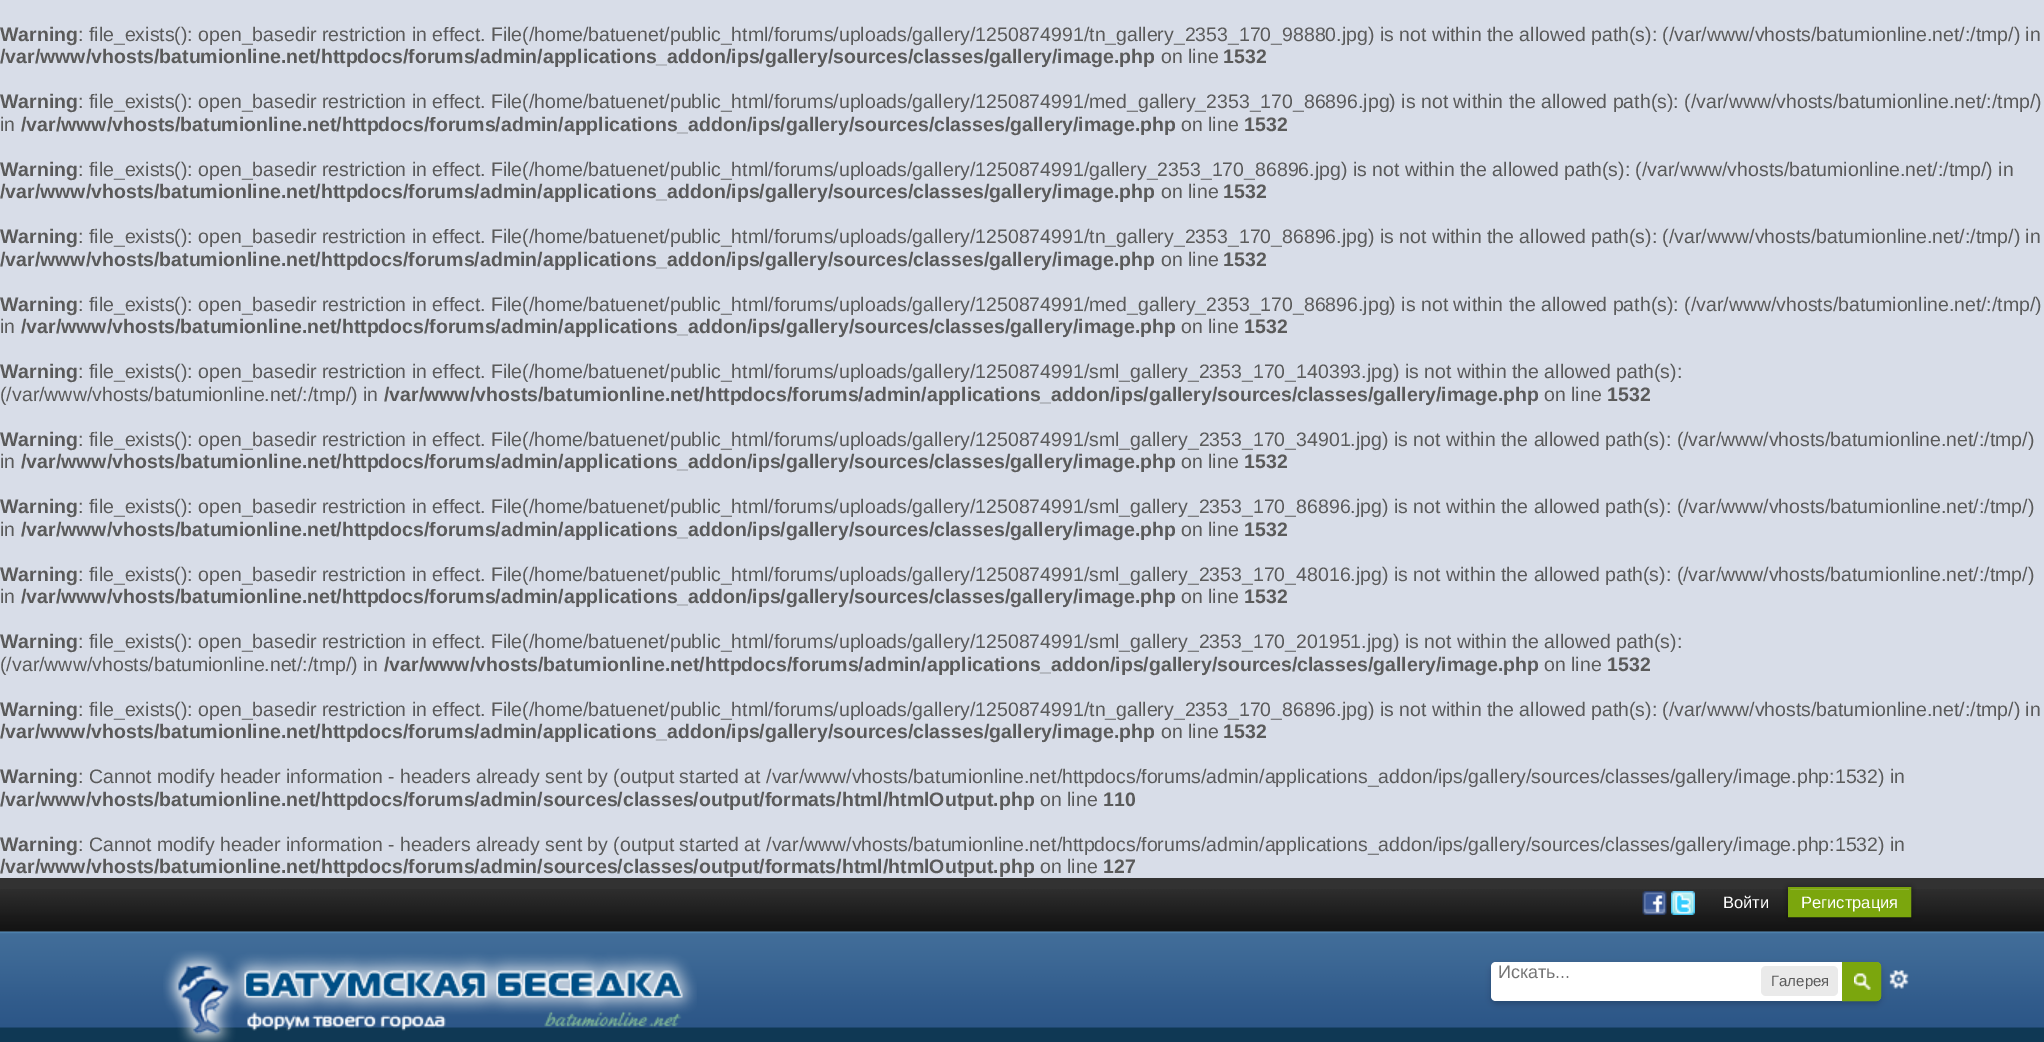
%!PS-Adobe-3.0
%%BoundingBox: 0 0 2044 1042
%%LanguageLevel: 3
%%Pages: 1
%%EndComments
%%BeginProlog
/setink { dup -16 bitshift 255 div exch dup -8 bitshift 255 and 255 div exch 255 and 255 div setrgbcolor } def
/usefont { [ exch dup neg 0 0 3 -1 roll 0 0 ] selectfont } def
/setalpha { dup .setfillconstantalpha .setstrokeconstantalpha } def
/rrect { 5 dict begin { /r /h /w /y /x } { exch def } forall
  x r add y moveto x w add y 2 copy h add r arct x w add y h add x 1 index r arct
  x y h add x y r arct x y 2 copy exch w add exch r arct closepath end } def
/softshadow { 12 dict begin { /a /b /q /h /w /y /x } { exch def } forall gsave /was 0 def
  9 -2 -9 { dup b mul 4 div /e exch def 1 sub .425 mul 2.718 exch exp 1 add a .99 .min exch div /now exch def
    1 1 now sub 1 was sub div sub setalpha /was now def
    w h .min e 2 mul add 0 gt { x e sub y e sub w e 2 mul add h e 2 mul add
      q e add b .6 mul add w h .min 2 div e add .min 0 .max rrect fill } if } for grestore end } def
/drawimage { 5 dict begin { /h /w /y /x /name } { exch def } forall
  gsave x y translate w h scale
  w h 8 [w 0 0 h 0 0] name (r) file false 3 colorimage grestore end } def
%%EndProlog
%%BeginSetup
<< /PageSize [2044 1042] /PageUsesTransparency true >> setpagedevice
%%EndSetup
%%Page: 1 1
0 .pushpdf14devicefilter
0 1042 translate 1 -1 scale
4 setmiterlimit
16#D8DDE8 setink
0 0 2044 1042 rectfill
/LiberationSans-Bold 19.5 usefont
16#5A5A5A setink
0 41 moveto (Warning) show
/LiberationSans-Regular 19.5 usefont
78 41 moveto (: file_exists\(\): open_basedir restriction in effect. File\(/home/batuenet/public_html/forums/uploads/gallery/1250874991/tn_gallery_2353_170_98880.jpg\) is not within the allowed path\(s\): \(/var/www/vhosts/batumionline.net/:/tmp/\) in) show
/LiberationSans-Bold 19.5 usefont
0 63 moveto (/var/www/vhosts/batumionline.net/httpdocs/forums/admin/applications_addon/ips/gallery/sources/classes/gallery/image.php) show
/LiberationSans-Regular 19.5 usefont
1161 63 moveto (on line) show
/LiberationSans-Bold 19.5 usefont
1223 63 moveto (1532) show
0 108 moveto (Warning) show
/LiberationSans-Regular 19.5 usefont
78 108 moveto (: file_exists\(\): open_basedir restriction in effect. File\(/home/batuenet/public_html/forums/uploads/gallery/1250874991/med_gallery_2353_170_86896.jpg\) is not within the allowed path\(s\): \(/var/www/vhosts/batumionline.net/:/tmp/\)) show
0 131 moveto (in) show
/LiberationSans-Bold 19.5 usefont
21 131 moveto (/var/www/vhosts/batumionline.net/httpdocs/forums/admin/applications_addon/ips/gallery/sources/classes/gallery/image.php) show
/LiberationSans-Regular 19.5 usefont
1181 131 moveto (on line) show
/LiberationSans-Bold 19.5 usefont
1244 131 moveto (1532) show
0 176 moveto (Warning) show
/LiberationSans-Regular 19.5 usefont
78 176 moveto (: file_exists\(\): open_basedir restriction in effect. File\(/home/batuenet/public_html/forums/uploads/gallery/1250874991/gallery_2353_170_86896.jpg\) is not within the allowed path\(s\): \(/var/www/vhosts/batumionline.net/:/tmp/\) in) show
/LiberationSans-Bold 19.5 usefont
0 198 moveto (/var/www/vhosts/batumionline.net/httpdocs/forums/admin/applications_addon/ips/gallery/sources/classes/gallery/image.php) show
/LiberationSans-Regular 19.5 usefont
1161 198 moveto (on line) show
/LiberationSans-Bold 19.5 usefont
1223 198 moveto (1532) show
0 243 moveto (Warning) show
/LiberationSans-Regular 19.5 usefont
78 243 moveto (: file_exists\(\): open_basedir restriction in effect. File\(/home/batuenet/public_html/forums/uploads/gallery/1250874991/tn_gallery_2353_170_86896.jpg\) is not within the allowed path\(s\): \(/var/www/vhosts/batumionline.net/:/tmp/\) in) show
/LiberationSans-Bold 19.5 usefont
0 266 moveto (/var/www/vhosts/batumionline.net/httpdocs/forums/admin/applications_addon/ips/gallery/sources/classes/gallery/image.php) show
/LiberationSans-Regular 19.5 usefont
1161 266 moveto (on line) show
/LiberationSans-Bold 19.5 usefont
1223 266 moveto (1532) show
0 311 moveto (Warning) show
/LiberationSans-Regular 19.5 usefont
78 311 moveto (: file_exists\(\): open_basedir restriction in effect. File\(/home/batuenet/public_html/forums/uploads/gallery/1250874991/med_gallery_2353_170_86896.jpg\) is not within the allowed path\(s\): \(/var/www/vhosts/batumionline.net/:/tmp/\)) show
0 333 moveto (in) show
/LiberationSans-Bold 19.5 usefont
21 333 moveto (/var/www/vhosts/batumionline.net/httpdocs/forums/admin/applications_addon/ips/gallery/sources/classes/gallery/image.php) show
/LiberationSans-Regular 19.5 usefont
1181 333 moveto (on line) show
/LiberationSans-Bold 19.5 usefont
1244 333 moveto (1532) show
0 378 moveto (Warning) show
/LiberationSans-Regular 19.5 usefont
78 378 moveto (: file_exists\(\): open_basedir restriction in effect. File\(/home/batuenet/public_html/forums/uploads/gallery/1250874991/sml_gallery_2353_170_140393.jpg\) is not within the allowed path\(s\):) show
0 401 moveto (\(/var/www/vhosts/batumionline.net/:/tmp/\) in) show
/LiberationSans-Bold 19.5 usefont
384 401 moveto (/var/www/vhosts/batumionline.net/httpdocs/forums/admin/applications_addon/ips/gallery/sources/classes/gallery/image.php) show
/LiberationSans-Regular 19.5 usefont
1544 401 moveto (on line) show
/LiberationSans-Bold 19.5 usefont
1607 401 moveto (1532) show
0 446 moveto (Warning) show
/LiberationSans-Regular 19.5 usefont
78 446 moveto (: file_exists\(\): open_basedir restriction in effect. File\(/home/batuenet/public_html/forums/uploads/gallery/1250874991/sml_gallery_2353_170_34901.jpg\) is not within the allowed path\(s\): \(/var/www/vhosts/batumionline.net/:/tmp/\)) show
0 468 moveto (in) show
/LiberationSans-Bold 19.5 usefont
21 468 moveto (/var/www/vhosts/batumionline.net/httpdocs/forums/admin/applications_addon/ips/gallery/sources/classes/gallery/image.php) show
/LiberationSans-Regular 19.5 usefont
1181 468 moveto (on line) show
/LiberationSans-Bold 19.5 usefont
1244 468 moveto (1532) show
0 513 moveto (Warning) show
/LiberationSans-Regular 19.5 usefont
78 513 moveto (: file_exists\(\): open_basedir restriction in effect. File\(/home/batuenet/public_html/forums/uploads/gallery/1250874991/sml_gallery_2353_170_86896.jpg\) is not within the allowed path\(s\): \(/var/www/vhosts/batumionline.net/:/tmp/\)) show
0 536 moveto (in) show
/LiberationSans-Bold 19.5 usefont
21 536 moveto (/var/www/vhosts/batumionline.net/httpdocs/forums/admin/applications_addon/ips/gallery/sources/classes/gallery/image.php) show
/LiberationSans-Regular 19.5 usefont
1181 536 moveto (on line) show
/LiberationSans-Bold 19.5 usefont
1244 536 moveto (1532) show
0 581 moveto (Warning) show
/LiberationSans-Regular 19.5 usefont
78 581 moveto (: file_exists\(\): open_basedir restriction in effect. File\(/home/batuenet/public_html/forums/uploads/gallery/1250874991/sml_gallery_2353_170_48016.jpg\) is not within the allowed path\(s\): \(/var/www/vhosts/batumionline.net/:/tmp/\)) show
0 603 moveto (in) show
/LiberationSans-Bold 19.5 usefont
21 603 moveto (/var/www/vhosts/batumionline.net/httpdocs/forums/admin/applications_addon/ips/gallery/sources/classes/gallery/image.php) show
/LiberationSans-Regular 19.5 usefont
1181 603 moveto (on line) show
/LiberationSans-Bold 19.5 usefont
1244 603 moveto (1532) show
0 648 moveto (Warning) show
/LiberationSans-Regular 19.5 usefont
78 648 moveto (: file_exists\(\): open_basedir restriction in effect. File\(/home/batuenet/public_html/forums/uploads/gallery/1250874991/sml_gallery_2353_170_201951.jpg\) is not within the allowed path\(s\):) show
0 671 moveto (\(/var/www/vhosts/batumionline.net/:/tmp/\) in) show
/LiberationSans-Bold 19.5 usefont
384 671 moveto (/var/www/vhosts/batumionline.net/httpdocs/forums/admin/applications_addon/ips/gallery/sources/classes/gallery/image.php) show
/LiberationSans-Regular 19.5 usefont
1544 671 moveto (on line) show
/LiberationSans-Bold 19.5 usefont
1607 671 moveto (1532) show
0 716 moveto (Warning) show
/LiberationSans-Regular 19.5 usefont
78 716 moveto (: file_exists\(\): open_basedir restriction in effect. File\(/home/batuenet/public_html/forums/uploads/gallery/1250874991/tn_gallery_2353_170_86896.jpg\) is not within the allowed path\(s\): \(/var/www/vhosts/batumionline.net/:/tmp/\) in) show
/LiberationSans-Bold 19.5 usefont
0 738 moveto (/var/www/vhosts/batumionline.net/httpdocs/forums/admin/applications_addon/ips/gallery/sources/classes/gallery/image.php) show
/LiberationSans-Regular 19.5 usefont
1161 738 moveto (on line) show
/LiberationSans-Bold 19.5 usefont
1223 738 moveto (1532) show
0 783 moveto (Warning) show
/LiberationSans-Regular 19.5 usefont
78 783 moveto (: Cannot modify header information - headers already sent by \(output started at /var/www/vhosts/batumionline.net/httpdocs/forums/admin/applications_addon/ips/gallery/sources/classes/gallery/image.php:1532\) in) show
/LiberationSans-Bold 19.5 usefont
0 806 moveto (/var/www/vhosts/batumionline.net/httpdocs/forums/admin/sources/classes/output/formats/html/htmlOutput.php) show
/LiberationSans-Regular 19.5 usefont
1040 806 moveto (on line) show
/LiberationSans-Bold 19.5 usefont
1103 806 moveto (110) show
0 851 moveto (Warning) show
/LiberationSans-Regular 19.5 usefont
78 851 moveto (: Cannot modify header information - headers already sent by \(output started at /var/www/vhosts/batumionline.net/httpdocs/forums/admin/applications_addon/ips/gallery/sources/classes/gallery/image.php:1532\) in) show
/LiberationSans-Bold 19.5 usefont
0 873 moveto (/var/www/vhosts/batumionline.net/httpdocs/forums/admin/sources/classes/output/formats/html/htmlOutput.php) show
/LiberationSans-Regular 19.5 usefont
1040 873 moveto (on line) show
/LiberationSans-Bold 19.5 usefont
1103 873 moveto (127) show
16#323232 setink
0 878 2044 54 rectfill
(img1.raw) 0 889 2044 43 drawimage
(img2.raw) 1642 891 25 24 drawimage
(img3.raw) 1671 891 24 24 drawimage
/LiberationSans-Regular 16.5 usefont
16#FFFFFF setink
1723 908 moveto (Войти) show
16#000000 setink
1788 888 123 30 0 3 0.4 softshadow
16#7BA60D setink
1790 890 119 25 rectfill
16#95B83D setink
1790 889 120 1 rectfill
16#7BA60D setink
2 setlinewidth
1789 888 121 28 rectstroke
16#FFFFFF setink
1801 908 moveto (Регистрация) show
16#0F3854 setink
0 1027 2044 15 rectfill
(img4.raw) 0 931 2044 97 drawimage
(img5.raw) 163 950 534 92 drawimage
(img7.raw) 1889 970 20 19 drawimage
16#000000 setink
1491 965 390 39 6 3 0.2 softshadow
16#FFFFFF setink
1496 962 moveto 1875 962 lineto 1878.5 962 1881 964.5 1881 968 curveto 1881 995 lineto 1881 998.5 1878.5 1001 1875 1001 curveto 1496 1001 lineto 1493 1001 1491 999 1491 996 curveto 1491 967 lineto 1491 964 1493 962 1496 962 curveto closepath fill
/LiberationSans-Regular 18 usefont
16#757575 setink
1498 978 moveto (Искать...) show
16#7BA60D setink
1842 962 moveto 1876 962 lineto 1879 962 1881 964 1881 967 curveto 1881 996 lineto 1881 999 1879 1001 1876 1001 curveto 1842 1001 lineto closepath fill
(img6.raw) 1854 973 17 17 drawimage
1843 963 moveto 1876 963 lineto 1878 963 1880 965 1880 967 curveto 1880 996 lineto 1880 998 1878 1000 1876 1000 curveto 1843 1000 lineto closepath stroke
16#EAEAEA setink
1761 966 77 30 5 rrect fill
/LiberationSans-Regular 15 usefont
16#5A5A5A setink
1771 986 moveto (Галерея) show
.poppdf14devicefilter showpage
%%EOF
